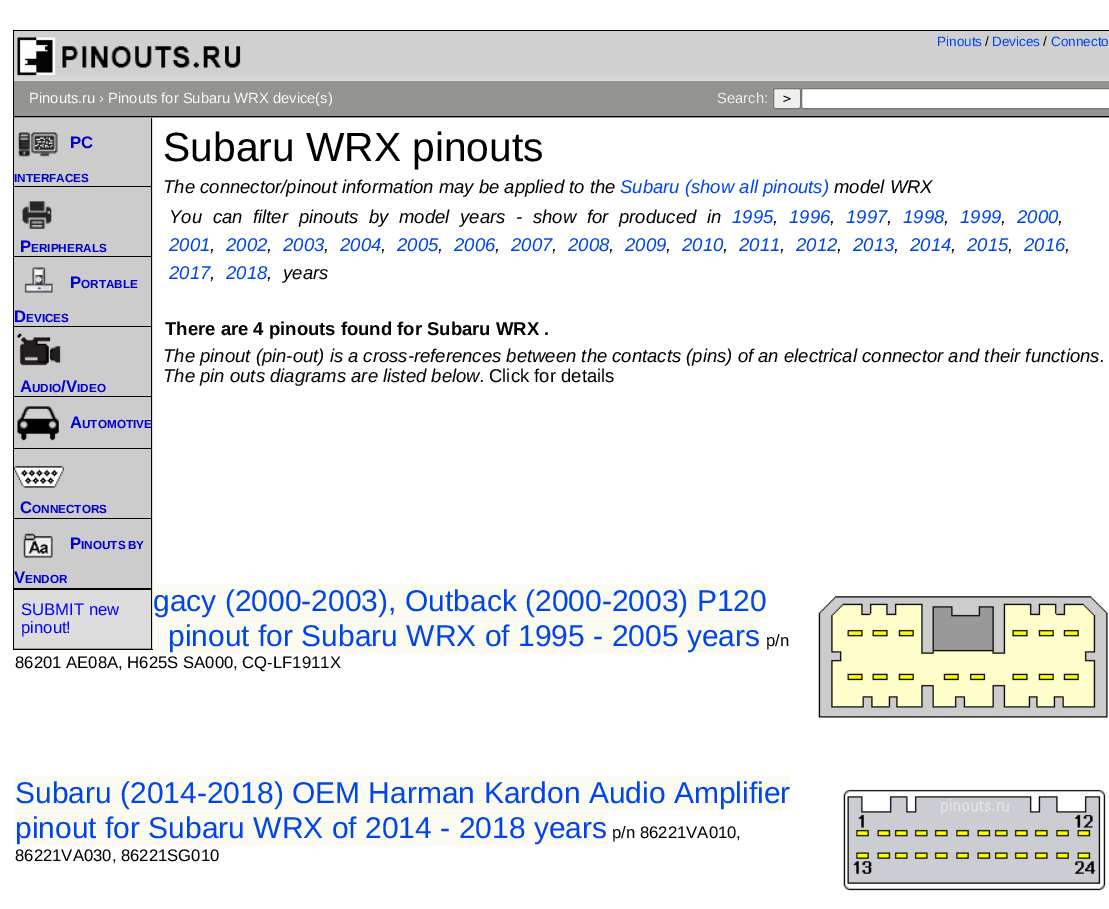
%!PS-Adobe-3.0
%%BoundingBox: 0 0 1109 909
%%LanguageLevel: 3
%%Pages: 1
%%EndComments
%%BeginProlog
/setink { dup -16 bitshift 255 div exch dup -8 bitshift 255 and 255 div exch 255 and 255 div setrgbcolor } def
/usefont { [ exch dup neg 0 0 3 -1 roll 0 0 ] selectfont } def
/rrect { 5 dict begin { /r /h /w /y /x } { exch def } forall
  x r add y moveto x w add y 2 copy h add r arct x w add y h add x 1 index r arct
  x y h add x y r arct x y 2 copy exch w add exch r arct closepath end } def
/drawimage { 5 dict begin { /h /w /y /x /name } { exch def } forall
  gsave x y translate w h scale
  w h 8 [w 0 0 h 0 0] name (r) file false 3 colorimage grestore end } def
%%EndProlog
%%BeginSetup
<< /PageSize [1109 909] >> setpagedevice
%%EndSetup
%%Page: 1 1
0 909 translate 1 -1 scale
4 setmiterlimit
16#FFFFFF setink
0 0 1109 909 rectfill
gsave 14 31 moveto 1109 31 lineto 1109 81 lineto 14 81 lineto closepath clip newpath
<< /ShadingType 2 /ColorSpace /DeviceRGB /Coords [568 31 568 81] /Extend [true true] /Function << /FunctionType 3 /Domain [0 1] /Functions [<< /FunctionType 2 /Domain [0 1] /C0 [0.816 0.816 0.816] /C1 [0.816 0.816 0.816] /N 1 >> << /FunctionType 2 /Domain [0 1] /C0 [0.816 0.816 0.816] /C1 [0.855 0.855 0.855] /N 1 >>] /Bounds [0.8] /Encode [0 1 0 1] >> >> shfill grestore
16#000000 setink
13 30 1096 1 rectfill
13 30 1 51 rectfill
(img1.raw) 17 37 224 39 drawimage
/LiberationSans-Regular 13.5 usefont
16#0044EE setink
937 46 moveto (Pinouts) show
16#000000 setink
985 46 moveto (/) show
16#0044EE setink
992 46 moveto (Devices) show
16#000000 setink
1043 46 moveto (/) show
16#0044EE setink
1051 46 moveto (Connecto) show
[
    [14 81 1095 37 16#949490]
    [13 116 1096 1 16#000000]
    [13 81 1 37 16#000000]
] { aload pop setink rectfill } forall
/LiberationSans-Regular 14.75 usefont
16#FAFAFA setink
29 103 moveto (Pinouts.ru) show
16#EEEEEE setink
99 103 moveto (›) show
16#FAFAFA setink
108 103 moveto (Pinouts for Subaru WRX device\(s\)) show
16#EEEEEE setink
717 103 moveto (Search:) show
16#EFEFEF setink
773.5 88.5 27 20 2 rrect gsave fill grestore
16#767676 setink
stroke
/DejaVuSansMono-Regular 13.5 usefont
16#000000 setink
783 103 moveto (>) show
16#FFFFFF setink
801.5 88.5 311 20 2 rrect gsave fill grestore
16#767676 setink
stroke
/LiberationSans-Regular 40.75 usefont
16#000000 setink
163 161 moveto (Subaru WRX pinouts) show
/LiberationSans-Italic 18.5 usefont
163 193 moveto (The connector/pinout information may be applied to the) show
16#0044EE setink
620 193 moveto (Subaru \(show all pinouts\)) show
16#000000 setink
834 193 moveto (model WRX) show
169 223 moveto 5.5 0 32 (You can filter pinouts by model years - show for) widthshow
619 223 moveto 5.5 0 32 (produced in) widthshow
16#0044EE setink
732 223 moveto (1995) show
16#000000 setink
773 223 moveto (,) show
16#0044EE setink
789 223 moveto (1996) show
16#000000 setink
830 223 moveto (,) show
16#0044EE setink
846 223 moveto (1997) show
16#000000 setink
887 223 moveto (,) show
16#0044EE setink
903 223 moveto (1998) show
16#000000 setink
944 223 moveto (,) show
16#0044EE setink
960 223 moveto (1999) show
16#000000 setink
1001 223 moveto (,) show
16#0044EE setink
1017 223 moveto (2000) show
16#000000 setink
1058 223 moveto (,) show
16#0044EE setink
169 251 moveto (2001) show
16#000000 setink
210 251 moveto (,) show
16#0044EE setink
226 251 moveto (2002) show
16#000000 setink
267 251 moveto (,) show
16#0044EE setink
283 251 moveto (2003) show
16#000000 setink
324 251 moveto (,) show
16#0044EE setink
340 251 moveto (2004) show
16#000000 setink
381 251 moveto (,) show
16#0044EE setink
397 251 moveto (2005) show
16#000000 setink
438 251 moveto (,) show
16#0044EE setink
454 251 moveto (2006) show
16#000000 setink
495 251 moveto (,) show
16#0044EE setink
511 251 moveto (2007) show
16#000000 setink
552 251 moveto (,) show
16#0044EE setink
568 251 moveto (2008) show
16#000000 setink
609 251 moveto (,) show
16#0044EE setink
625 251 moveto (2009) show
16#000000 setink
666 251 moveto (,) show
16#0044EE setink
682 251 moveto (2010) show
16#000000 setink
723 251 moveto (,) show
16#0044EE setink
739 251 moveto (2011) show
16#000000 setink
780 251 moveto (,) show
16#0044EE setink
796 251 moveto (2012) show
16#000000 setink
837 251 moveto (,) show
16#0044EE setink
853 251 moveto (2013) show
16#000000 setink
894 251 moveto (,) show
16#0044EE setink
910 251 moveto (2014) show
16#000000 setink
951 251 moveto (,) show
16#0044EE setink
967 251 moveto (2015) show
16#000000 setink
1008 251 moveto (,) show
16#0044EE setink
1024 251 moveto (2016) show
16#000000 setink
1065 251 moveto (,) show
16#0044EE setink
169 279 moveto (2017) show
16#000000 setink
210 279 moveto (,) show
16#0044EE setink
226 279 moveto (2018) show
16#000000 setink
267 279 moveto (,) show
283 279 moveto (years) show
/LiberationSans-Bold 18.5 usefont
165 335 moveto (There are 4 pinouts found for Subaru WRX .) show
/LiberationSans-Italic 18.5 usefont
163 362 moveto (The pinout \(pin-out\) is a cross-references between the contacts \(pins\) of an electrical connector and their functions.) show
163 382 moveto (The pin outs diagrams are listed below.) show
/LiberationSans-Regular 18.5 usefont
489 382 moveto (Click for details) show
16#FBFBF1 setink
153 584 615 34 rectfill
/LiberationSans-Regular 30 usefont
16#0044EE setink
153 611 moveto (gacy \(2000-2003\), Outback \(2000-2003\) P120) show
(img2.raw) 818 596 290 122 drawimage
16#FBFBF1 setink
15 619 745 34 rectfill
16#0044EE setink
168 646 moveto (pinout for Subaru WRX of 1995 - 2005 years) show
/LiberationSans-Regular 16.7 usefont
16#000000 setink
766 646 moveto (p/n) show
15 668 moveto (86201 AE08A, H625S SA000, CQ-LF1911X) show
16#FBFBF1 setink
15 776 775 34 rectfill
/LiberationSans-Regular 30 usefont
16#0044EE setink
15 803 moveto (Subaru \(2014-2018\) OEM Harman Kardon Audio Amplifier) show
(img3.raw) 843 789 263 102 drawimage
16#FBFBF1 setink
15 811 593 34 rectfill
16#0044EE setink
15 838 moveto (pinout for Subaru WRX of 2014 - 2018 years) show
/LiberationSans-Regular 16.7 usefont
16#000000 setink
612 838 moveto (p/n 86221VA010,) show
15 861 moveto (86221VA030, 86221SG010) show
[
    [14 118 139 531 16#DDDDDD]
    [151 118 1 532 16#000000]
    [13 649 140 1 16#000000]
    [13 118 1 532 16#000000]
    [14 118 137 330 16#CCCCCC]
    [14 186 137 1 16#000000]
] { aload pop setink rectfill } forall
(img4.raw) 18 132 40 25 drawimage
/LiberationSans-Bold 16.7 usefont
16#0001CC setink
70 148 moveto (PC) show
/LiberationSans-Bold 11.75 usefont
14 182 moveto (INTERFACES) show
16#000000 setink
14 256 137 1 rectfill
(img5.raw) 22 201 30 28 drawimage
/LiberationSans-Bold 16.7 usefont
16#0001CC setink
20 252 moveto (P) show
/LiberationSans-Bold 11.75 usefont
31 252 moveto (ERIPHERALS) show
16#000000 setink
14 326 137 1 rectfill
(img6.raw) 24 267 29 26 drawimage
/LiberationSans-Bold 16.7 usefont
16#0001CC setink
70 288 moveto (P) show
/LiberationSans-Bold 11.75 usefont
81 288 moveto (ORTABLE) show
/LiberationSans-Bold 16.7 usefont
14 322 moveto (D) show
/LiberationSans-Bold 11.75 usefont
26 322 moveto (EVICES) show
16#000000 setink
14 396 137 1 rectfill
(img7.raw) 17 333 44 33 drawimage
/LiberationSans-Bold 16.7 usefont
16#0001CC setink
20 392 moveto (A) show
/LiberationSans-Bold 11.75 usefont
32 392 moveto (UDIO) show
/LiberationSans-Bold 16.7 usefont
61 392 moveto (/V) show
/LiberationSans-Bold 11.75 usefont
77 392 moveto (IDEO) show
16#000000 setink
14 448 137 1 rectfill
(img8.raw) 17 406 42 35 drawimage
/LiberationSans-Bold 16.7 usefont
16#0001CC setink
70 428 moveto (A) show
/LiberationSans-Bold 11.75 usefont
82 428 moveto (UTOMOTIVE) show
16#CCCCCC setink
14 449 137 69 rectfill
16#000000 setink
14 518 137 1 rectfill
(img9.raw) 13 466 51 22 drawimage
/LiberationSans-Bold 16.7 usefont
16#0001CC setink
20 513 moveto (C) show
/LiberationSans-Bold 11.75 usefont
32 513 moveto (ONNECTORS) show
16#CCCCCC setink
14 519 137 69 rectfill
16#000000 setink
14 588 137 2 rectfill
(img10.raw) 23 533 30 25 drawimage
/LiberationSans-Bold 16.7 usefont
16#0001CC setink
70 549 moveto (P) show
/LiberationSans-Bold 11.75 usefont
81 549 moveto (INOUTS) show
128 549 moveto (BY) show
/LiberationSans-Bold 16.7 usefont
14 583 moveto (V) show
/LiberationSans-Bold 11.75 usefont
25 583 moveto (ENDOR) show
16#999999 setink
14 648 137 1 rectfill
/LiberationSans-Regular 16.7 usefont
16#0000FF setink
21 615 moveto (SUBMIT new) show
21 633 moveto (pinout!) show
showpage
%%EOF
